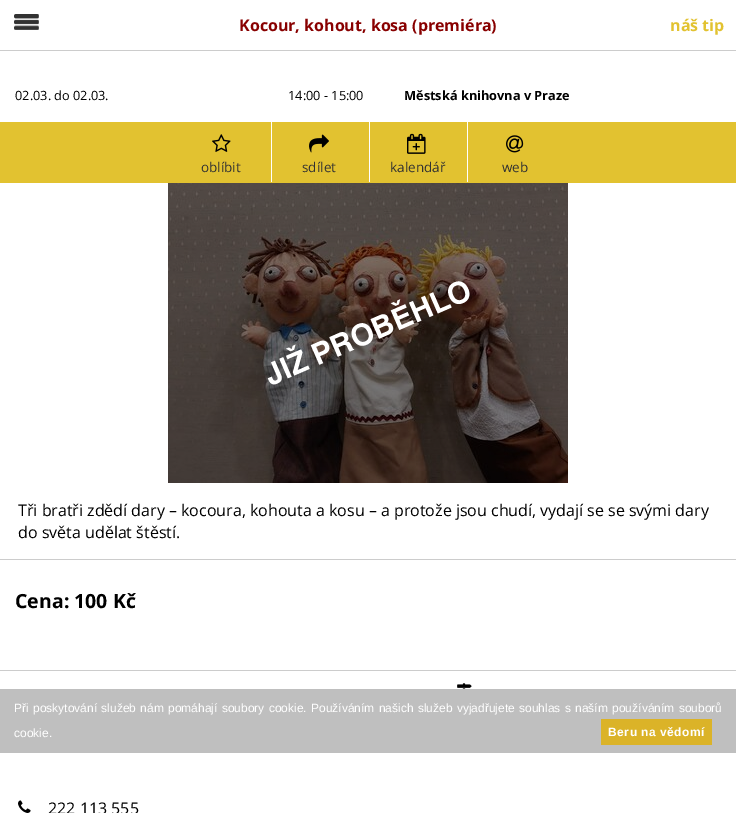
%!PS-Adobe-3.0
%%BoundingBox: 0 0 736 813
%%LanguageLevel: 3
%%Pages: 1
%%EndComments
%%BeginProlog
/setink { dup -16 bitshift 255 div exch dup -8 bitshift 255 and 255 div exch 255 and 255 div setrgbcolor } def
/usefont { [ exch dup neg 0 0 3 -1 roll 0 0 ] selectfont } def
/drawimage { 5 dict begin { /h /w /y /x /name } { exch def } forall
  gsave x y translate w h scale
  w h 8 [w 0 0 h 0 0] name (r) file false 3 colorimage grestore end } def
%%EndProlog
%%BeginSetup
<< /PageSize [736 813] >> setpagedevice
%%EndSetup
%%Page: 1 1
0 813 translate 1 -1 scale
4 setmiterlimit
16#FFFFFF setink
0 0 736 813 rectfill
16#CCCCCC setink
0 50 736 1 rectfill
(img1.raw) 14 14 25 16 drawimage
/OpenSans-Bold 16 usefont
16#880000 setink
239 31 moveto (Kocour, kohout, kosa \(premiéra\)) show
16#E2C230 setink
670 31 moveto (náš tip) show
/OpenSans-Regular 12.75 usefont
16#000000 setink
15 100 moveto (02.03. do 02.03.) show
288 100 moveto (14:00 - 15:00) show
/OpenSans-Bold 12.75 usefont
404 100 moveto (Městská knihovna v Praze) show
16#E2C230 setink
0 122 736 61 rectfill
(img2.raw) 212 134 19 18 drawimage
/OpenSans-Regular 13.5 usefont
16#323232 setink
201 172 moveto (oblíbit) show
16#FFFFFF setink
271 122 1 60 rectfill
(img3.raw) 309 134 20 19 drawimage
16#323232 setink
302 172 moveto (sdílet) show
16#FFFFFF setink
369 122 1 60 rectfill
(img4.raw) 407 133 19 21 drawimage
16#323232 setink
390 172 moveto (kalendář) show
16#FFFFFF setink
467 122 1 60 rectfill
(img5.raw) 506 135 18 18 drawimage
16#323232 setink
502 172 moveto (web) show
(img6.raw) 168 183 400 300 drawimage
(img7.raw) 267 281 203 104 drawimage
/OpenSans-Regular 16 usefont
16#000000 setink
18 516 moveto (Tři bratři zdědí dary – kocoura, kohouta a kosu – a protože jsou chudí, vydají se se svými dary) show
18 538 moveto (do světa udělat štěstí.) show
16#CCCCCC setink
0 559 736 1 rectfill
/OpenSans-Bold 19.5 usefont
16#000000 setink
15 608 moveto (Cena: 100 Kč) show
16#CCCCCC setink
0 670 736 1 rectfill
(img8.raw) 457 683 15 6 drawimage
(img9.raw) 18 800 13 13 drawimage
/OpenSans-Regular 16 usefont
16#000000 setink
48 814 moveto (222 113 555) show
16#BFBFBF setink
0 689 736 64 rectfill
/LiberationSans-Regular 12 usefont
16#FFFFFF setink
14 712 moveto 1 0 32 (Při poskytování služeb nám pomáhají soubory cookie. Používáním našich služeb vyjadřujete souhlas s naším používáním souborů) widthshow
14 737 moveto (cookie.) show
16#DBB328 setink
601 719 111 26 rectfill
/LiberationSans-Bold 12 usefont
16#FFFFFF setink
608 736 moveto 0.5 0 (Beru na vědomí) ashow
showpage
%%EOF
